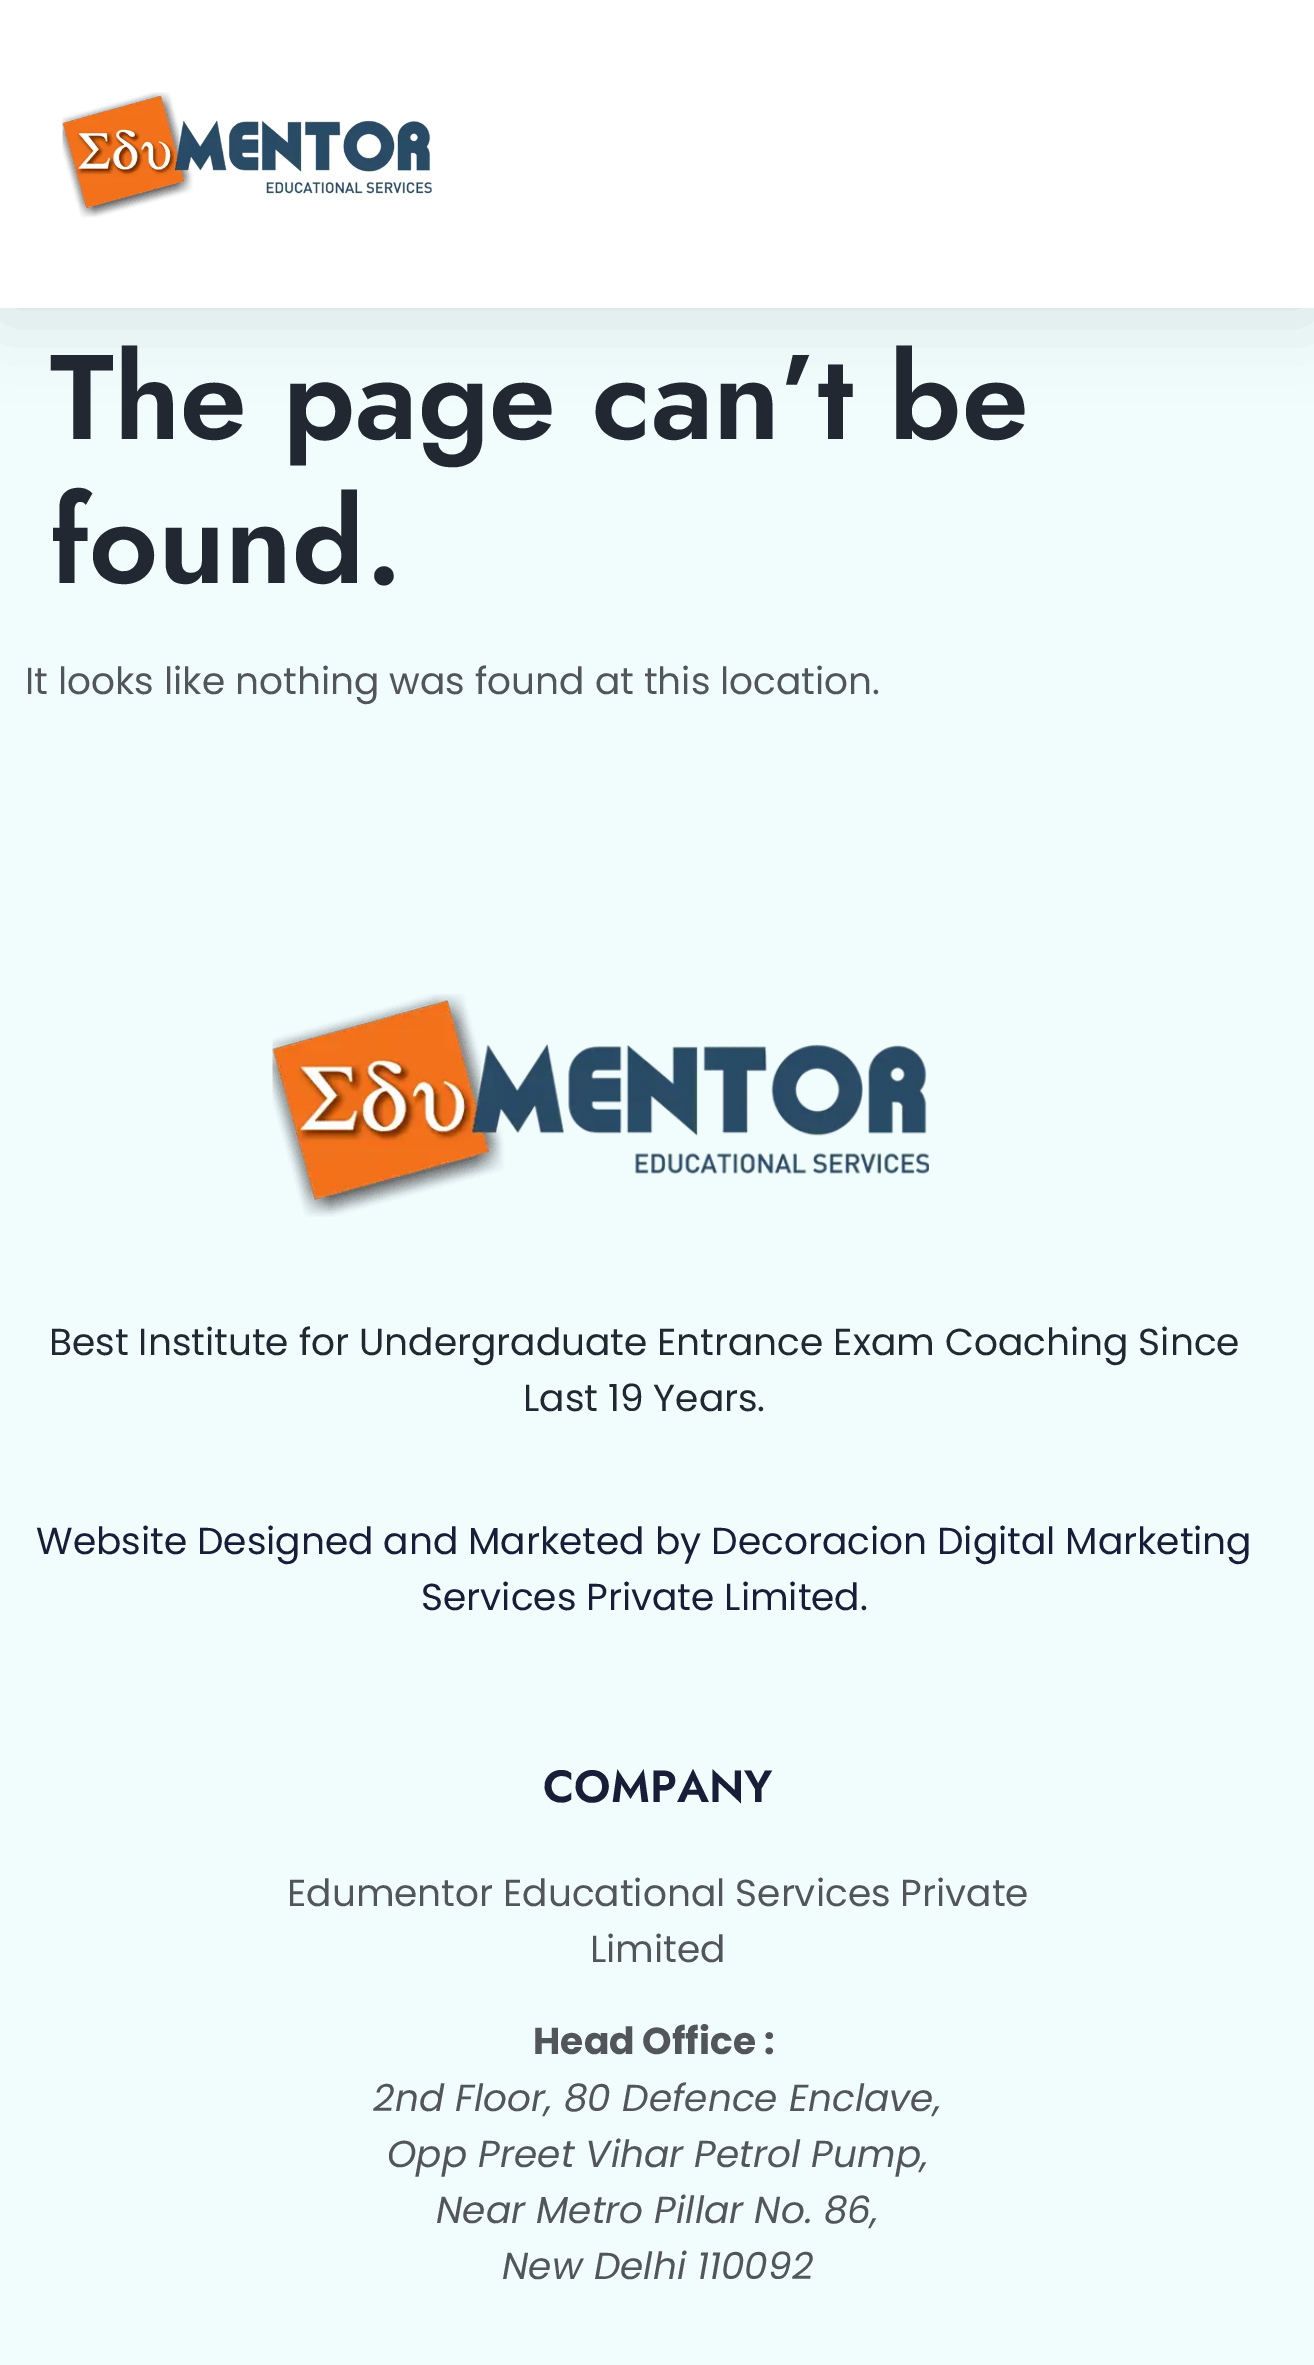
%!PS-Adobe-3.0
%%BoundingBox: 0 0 1314 2365
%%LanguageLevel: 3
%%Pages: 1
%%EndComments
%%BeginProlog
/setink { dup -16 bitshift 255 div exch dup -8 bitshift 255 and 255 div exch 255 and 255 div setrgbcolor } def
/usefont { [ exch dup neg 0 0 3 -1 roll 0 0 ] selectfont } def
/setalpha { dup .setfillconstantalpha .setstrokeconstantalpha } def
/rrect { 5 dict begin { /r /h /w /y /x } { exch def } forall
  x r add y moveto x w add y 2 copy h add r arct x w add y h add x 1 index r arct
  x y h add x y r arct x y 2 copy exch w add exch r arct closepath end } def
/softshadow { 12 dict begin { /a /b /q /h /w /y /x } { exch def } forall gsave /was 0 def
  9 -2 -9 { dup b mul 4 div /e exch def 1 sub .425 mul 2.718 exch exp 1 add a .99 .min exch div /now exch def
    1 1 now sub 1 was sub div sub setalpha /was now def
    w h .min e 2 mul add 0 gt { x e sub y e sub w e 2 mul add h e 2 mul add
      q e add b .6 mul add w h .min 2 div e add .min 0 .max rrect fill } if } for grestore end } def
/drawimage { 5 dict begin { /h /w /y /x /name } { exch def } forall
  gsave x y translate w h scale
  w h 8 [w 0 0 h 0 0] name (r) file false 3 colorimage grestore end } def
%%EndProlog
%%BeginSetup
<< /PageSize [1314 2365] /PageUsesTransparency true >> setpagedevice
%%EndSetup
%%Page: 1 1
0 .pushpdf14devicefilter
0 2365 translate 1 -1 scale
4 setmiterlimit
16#F1FCFD setink
0 0 1314 2365 rectfill
16#000000 setink
0 13 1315 307 0 37.5 0.1 softshadow
16#FFFFFF setink
0 0 1314 308 rectfill
(img1.raw) 62 92 370 126 drawimage
/Jost-SemiBold 120 usefont
16#212832 setink
50 439 moveto (The page can’t be) show
50 583 moveto (found.) show
/Poppins-Regular 37.5 usefont
16#52565B setink
25 694 moveto (It looks like nothing was found at this location.) show
(img2.raw) 272 994 657 223 drawimage
16#212832 setink
49 1355 moveto (Best Institute for Undergraduate Entrance Exam Coaching Since) show
523 1411 moveto (Last 19 Years.) show
16#181D38 setink
36 1554 moveto (Website Designed and Marketed by Decoracion Digital Marketing) show
421 1610 moveto (Services Private Limited.) show
/Jost-SemiBold 45 usefont
543 1802 moveto (COMPANY) show
/Poppins-Regular 37.5 usefont
16#52565B setink
287 1906 moveto (Edumentor Educational Services Private) show
590 1962 moveto (Limited) show
/Poppins-Bold 37.5 usefont
533 2054 moveto (Head Office :) show
/Poppins-Italic 37.5 usefont
[
    [(2nd Floor, 80 Defence Enclave,) 373 2111]
    [(Opp Preet Vihar Petrol Pump,) 387 2167]
    [(Near Metro Pillar No. 86,) 436 2223]
    [(New Delhi 110092) 502 2279]
] { aload pop moveto show } forall
.poppdf14devicefilter showpage
%%EOF
